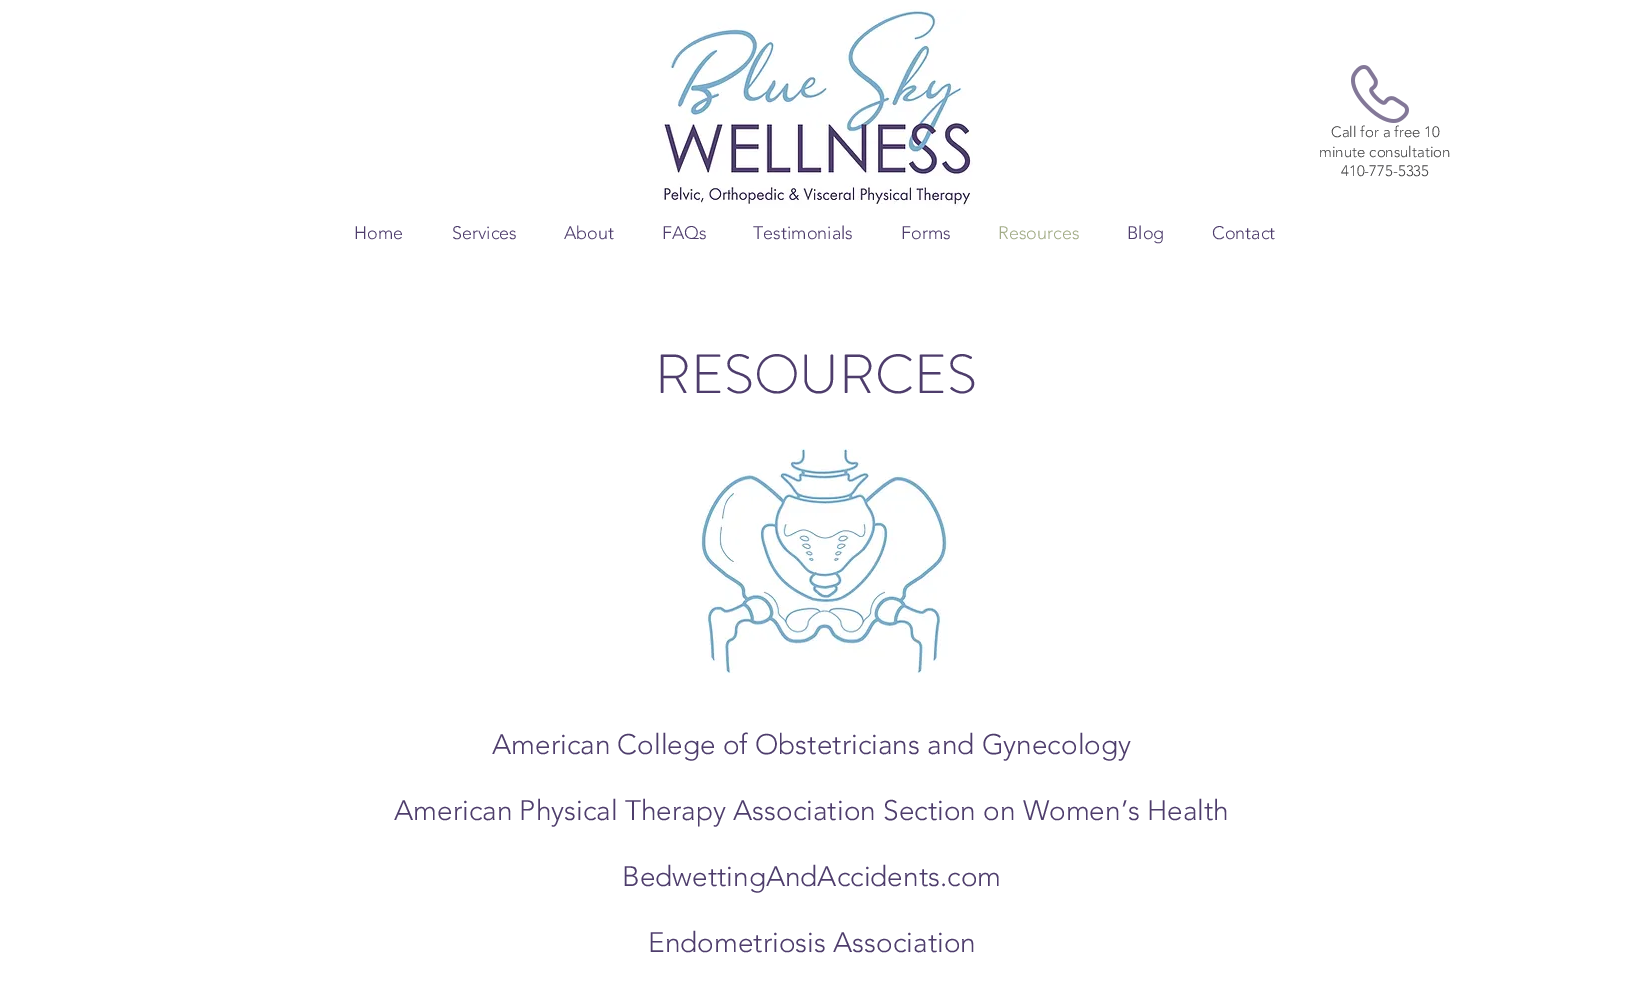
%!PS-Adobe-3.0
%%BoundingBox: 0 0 1633 997
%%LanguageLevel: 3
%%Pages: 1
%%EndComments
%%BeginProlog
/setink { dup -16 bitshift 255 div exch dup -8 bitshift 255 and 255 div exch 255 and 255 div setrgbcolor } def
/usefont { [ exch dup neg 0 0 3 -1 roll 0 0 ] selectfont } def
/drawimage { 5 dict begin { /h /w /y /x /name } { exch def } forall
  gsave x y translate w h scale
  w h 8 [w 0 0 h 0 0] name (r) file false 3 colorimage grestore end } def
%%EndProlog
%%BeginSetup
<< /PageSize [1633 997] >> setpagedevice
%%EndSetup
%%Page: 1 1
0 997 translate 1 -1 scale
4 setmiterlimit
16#FFFFFF setink
0 0 1633 997 rectfill
(img1.raw) 662 9 311 199 drawimage
(img2.raw) 1351 65 58 58 drawimage
/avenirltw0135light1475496-Light 15 usefont
16#404041 setink
[
    [(Call for a free 10) 1331 137]
    [(minute consultation) 1319 157]
    [(410-775-5335) 1341 176]
] { aload pop moveto show } forall
/avenirltw0135light1475496-Light 18 usefont
16#4E3D6C setink
[
    [(Home) 354 239]
    [(Services) 452 239]
    [(About) 564 239]
    [(FAQs) 662 239]
    [(Testimonials) 753 239]
    [(Forms) 901 239]
] { aload pop moveto show } forall
16#A2AC87 setink
998 239 moveto (Resources) show
16#4E3D6C setink
1127 239 moveto (Blog) show
1212 239 moveto (Contact) show
/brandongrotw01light-Light 55 usefont
655 393 moveto (RESOURCES) show
(img3.raw) 700 448 248 226 drawimage
/avenirltw0135light1475496-Light 28 usefont
[
    [(American College of Obstetricians and Gynecology) 492 754]
    [(American Physical Therapy Association Section on Women’s Health) 394 820]
    [(BedwettingAndAccidents.com) 622 886]
    [(Endometriosis Association) 648 952]
] { aload pop moveto show } forall
showpage
%%EOF
